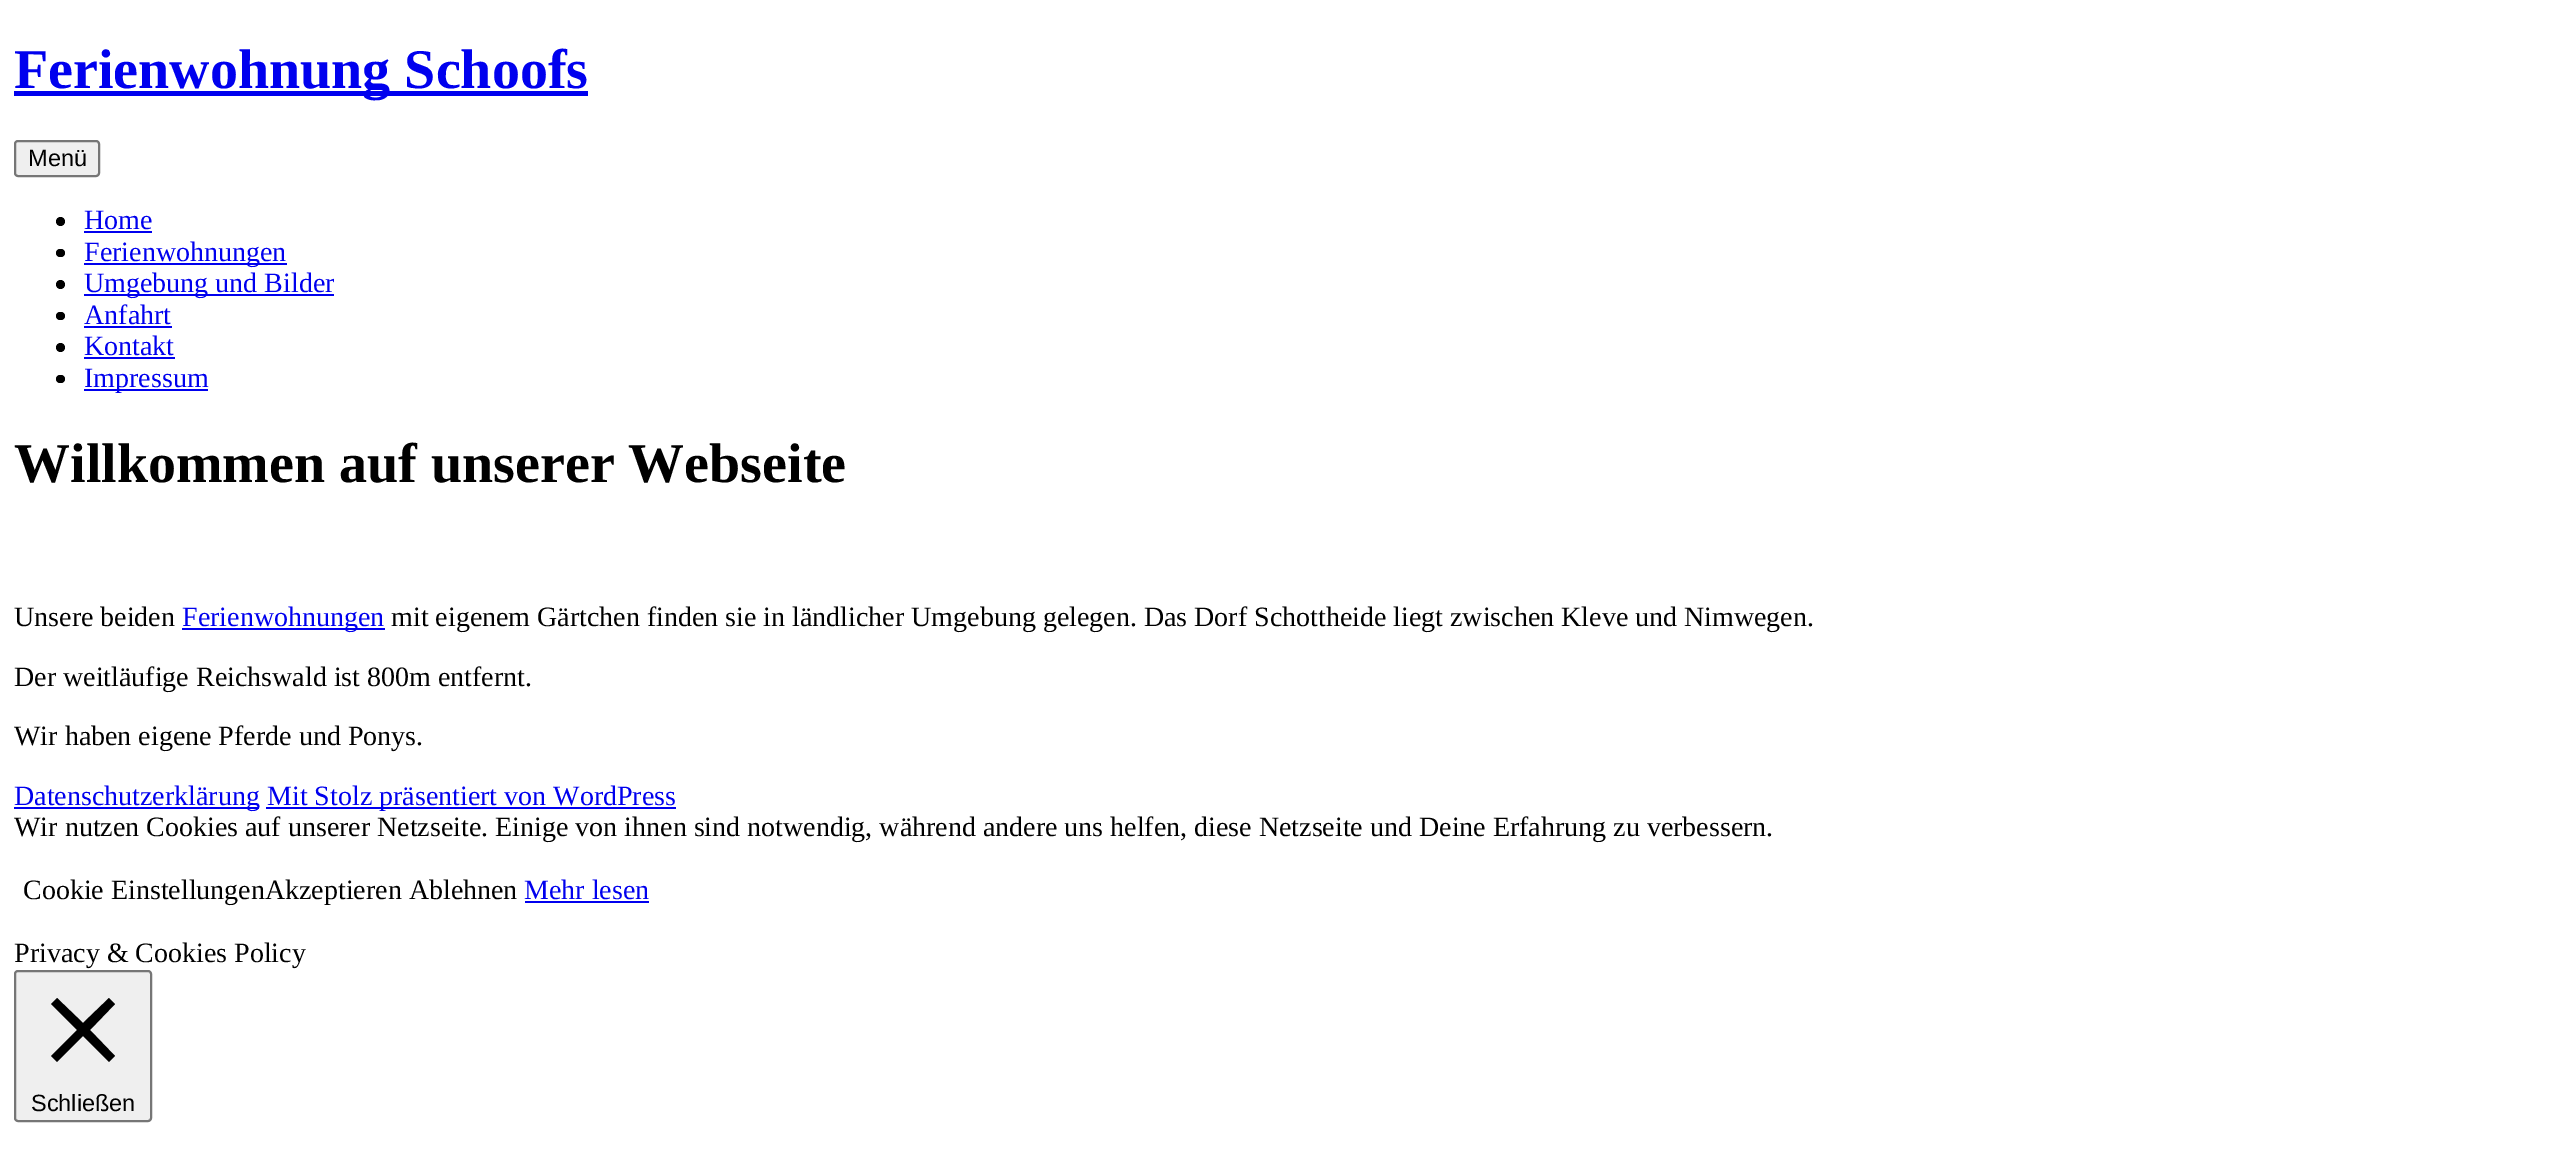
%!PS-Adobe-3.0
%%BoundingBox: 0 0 2573 1155
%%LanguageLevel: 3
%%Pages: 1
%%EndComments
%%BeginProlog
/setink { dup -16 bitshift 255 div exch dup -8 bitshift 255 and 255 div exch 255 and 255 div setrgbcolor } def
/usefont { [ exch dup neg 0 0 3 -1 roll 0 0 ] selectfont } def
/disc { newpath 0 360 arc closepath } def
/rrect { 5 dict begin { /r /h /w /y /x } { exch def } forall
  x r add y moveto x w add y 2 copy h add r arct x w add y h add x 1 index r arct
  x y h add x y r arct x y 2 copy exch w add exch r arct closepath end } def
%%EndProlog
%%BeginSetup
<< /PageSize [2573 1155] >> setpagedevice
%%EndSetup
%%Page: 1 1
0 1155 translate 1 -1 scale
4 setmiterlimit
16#FFFFFF setink
0 0 2573 1155 rectfill
16#0000EE setink
14 91 574 5 rectfill
/LiberationSerif-Bold 56 usefont
14 88 moveto (Ferienwohnung Schoofs) show
16#EFEFEF setink
15 141 84 35 3 rrect gsave fill grestore
16#767676 setink
2 setlinewidth
stroke
/LiberationSans-Regular 23.5 usefont
16#000000 setink
28 166 moveto (Menü) show
60.5 221.5 4.5 disc fill
/LiberationSerif-Regular 28 usefont
16#0000EE setink
84 229 moveto (Home) show
84 231 68 2 rectfill
16#000000 setink
56 249 9 8 4 rrect fill
16#0000EE setink
84 263 203 2 rectfill
84 261 moveto (Ferienwohnungen) show
16#000000 setink
60.5 284.5 4.5 disc fill
16#0000EE setink
84 294 250 2 rectfill
84 292 moveto (Umgebung und Bilder) show
16#000000 setink
56 312 9 8 4 rrect fill
16#0000EE setink
84 324 moveto (Anfahrt) show
84 326 88 2 rectfill
16#000000 setink
60.5 347.5 4.5 disc fill
16#0000EE setink
84 355 moveto (Kontakt) show
84 357 91 2 rectfill
16#000000 setink
56 375 9 8 4 rrect fill
16#0000EE setink
84 389 124 2 rectfill
84 387 moveto (Impressum) show
/LiberationSerif-Bold 56 usefont
16#000000 setink
14 482 moveto (Willkommen auf unserer Webseite) show
/LiberationSerif-Regular 28 usefont
14 626 moveto (Unsere beiden) show
16#0000EE setink
182 628 203 2 rectfill
182 626 moveto (Ferienwohnungen) show
16#000000 setink
[
    [(mit eigenem Gärtchen finden sie in ländlicher Umgebung gelegen. Das Dorf Schottheide liegt zwischen Kleve und Nimwegen.) 391 626]
    [(Der weitläufige Reichswald ist 800m entfernt.) 14 686]
    [(Wir haben eigene Pferde und Ponys.) 14 745]
] { aload pop moveto show } forall
16#0000EE setink
14 807 245 2 rectfill
14 805 moveto (Datenschutzerklärung) show
266 807 410 2 rectfill
267 805 moveto (Mit Stolz präsentiert von WordPress) show
16#000000 setink
14 836 moveto (Wir nutzen Cookies auf unserer Netzseite. Einige von ihnen sind notwendig, während andere uns helfen, diese Netzseite und Deine Erfahrung zu verbessern.) show
23 899 moveto (Cookie EinstellungenAkzeptieren Ablehnen) show
16#0000EE setink
524 899 moveto (Mehr lesen) show
525 901 124 2 rectfill
16#000000 setink
14 962 moveto (Privacy & Cookies Policy) show
16#EFEFEF setink
15 971 136 150 3 rrect gsave fill grestore
16#767676 setink
stroke
16#000000 setink
115 1004 moveto 109 998 lineto 83 1023 lineto 57 998 lineto 51 1004 lineto 77 1030 lineto 51 1056 lineto 57 1062 lineto 83 1036 lineto 109 1062 lineto 115 1056 lineto 90 1030 lineto closepath fill
/LiberationSans-Regular 23.5 usefont
31 1111 moveto (Schließen) show
showpage
%%EOF
